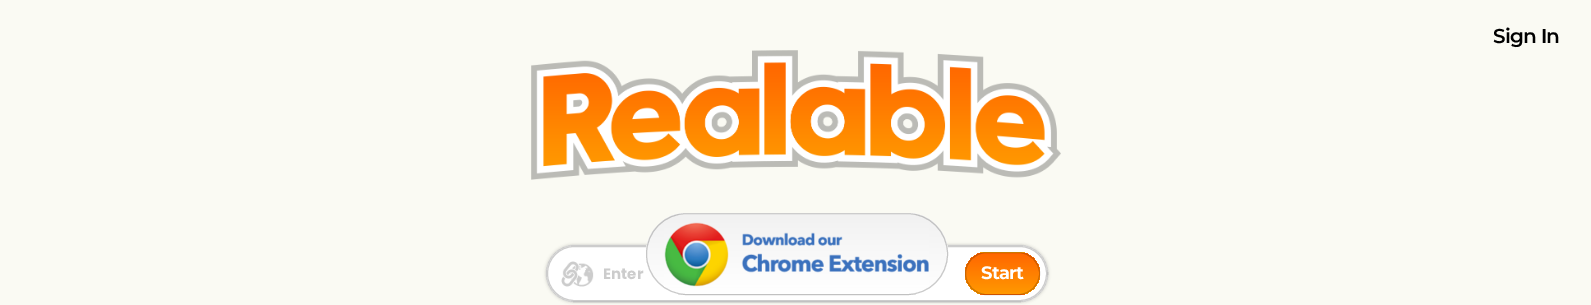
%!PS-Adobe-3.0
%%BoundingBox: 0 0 1591 305
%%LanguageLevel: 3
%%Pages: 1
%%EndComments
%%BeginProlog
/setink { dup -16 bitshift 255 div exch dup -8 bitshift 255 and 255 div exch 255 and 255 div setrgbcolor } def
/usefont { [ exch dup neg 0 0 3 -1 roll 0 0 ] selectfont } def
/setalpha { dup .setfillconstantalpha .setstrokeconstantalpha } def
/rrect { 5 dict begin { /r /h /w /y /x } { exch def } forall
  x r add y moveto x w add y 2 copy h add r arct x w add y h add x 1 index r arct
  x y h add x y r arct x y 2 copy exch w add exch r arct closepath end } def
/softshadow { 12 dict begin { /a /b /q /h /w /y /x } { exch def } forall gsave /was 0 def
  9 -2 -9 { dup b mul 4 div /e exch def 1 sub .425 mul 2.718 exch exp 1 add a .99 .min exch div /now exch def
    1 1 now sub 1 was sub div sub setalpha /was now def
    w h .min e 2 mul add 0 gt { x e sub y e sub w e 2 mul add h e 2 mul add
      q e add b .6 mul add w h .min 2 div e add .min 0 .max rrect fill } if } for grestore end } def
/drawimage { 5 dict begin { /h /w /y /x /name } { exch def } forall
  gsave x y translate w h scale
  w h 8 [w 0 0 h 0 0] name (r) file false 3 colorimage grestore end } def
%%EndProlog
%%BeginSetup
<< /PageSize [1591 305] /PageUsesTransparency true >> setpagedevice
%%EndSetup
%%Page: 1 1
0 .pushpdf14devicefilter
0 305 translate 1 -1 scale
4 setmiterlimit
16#FAFAF3 setink
0 0 1591 305 rectfill
/Montserrat-SemiBold 20 usefont
16#000000 setink
1493 43 moveto -0.75 0 (Sign In) ashow
(img1.raw) 531 50 530 130 drawimage
546 245 502 57 28.5 1.5 0.2 softshadow
16#FFFFFF setink
546 245 502 57 28.5 rrect fill
0.2 setalpha
16#000000 setink
546.5 245.5 501 56 28 rrect stroke
1 setalpha
16#FFFFFF setink
547 246 500 55 27.5 rrect fill
(img2.raw) 561 261 33 26 drawimage
0.2 setalpha
16#000000 setink
547.5 246.5 499 54 27 rrect stroke
/Poppins-Bold 15 usefont
1 setalpha
16#CCCCCC setink
603 279 moveto (Enter) show
gsave
965 252 75 43 21.5 rrect clip newpath
gsave 980 252 moveto 1025 252 lineto 1025 253 lineto 980 253 lineto closepath clip newpath
<< /ShadingType 2 /ColorSpace /DeviceRGB /Coords [1003 212 1003 253] /Extend [true true] /Function << /FunctionType 2 /Domain [0 1] /C0 [1 0.4 0] /C1 [1 0.6 0] /N 1 >> >> shfill grestore
gsave 965 253 moveto 1040 253 lineto 1040 294 lineto 965 294 lineto closepath clip newpath
<< /ShadingType 2 /ColorSpace /DeviceRGB /Coords [1003 253 1003 294] /Extend [true true] /Function << /FunctionType 2 /Domain [0 1] /C0 [1 0.4 0] /C1 [1 0.6 0] /N 1 >> >> shfill grestore
gsave 980 294 moveto 1025 294 lineto 1025 295 lineto 980 295 lineto closepath clip newpath
<< /ShadingType 2 /ColorSpace /DeviceRGB /Coords [1003 294 1003 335] /Extend [true true] /Function << /FunctionType 2 /Domain [0 1] /C0 [1 0.4 0] /C1 [1 0.6 0] /N 1 >> >> shfill grestore
grestore
0.2 setalpha
16#000000 setink
965.5 252.5 74 42 21 rrect stroke
/Montserrat-Bold 18 usefont
1 setalpha
16#FFFFFF setink
981 279 moveto -0.75 0 (Start) ashow
gsave
646 213 302 82 41 rrect clip newpath
gsave 678 213 moveto 916 213 lineto 916 214 lineto 678 214 lineto closepath clip newpath
<< /ShadingType 2 /ColorSpace /DeviceRGB /Coords [797 134 797 214] /Extend [true true] /Function << /FunctionType 2 /Domain [0 1] /C0 [0.945 0.945 0.945] /C1 [1 1 1] /N 1 >> >> shfill grestore
gsave 646 214 moveto 948 214 lineto 948 294 lineto 646 294 lineto closepath clip newpath
<< /ShadingType 2 /ColorSpace /DeviceRGB /Coords [797 214 797 294] /Extend [true true] /Function << /FunctionType 2 /Domain [0 1] /C0 [0.945 0.945 0.945] /C1 [1 1 1] /N 1 >> >> shfill grestore
gsave 678 294 moveto 916 294 lineto 916 295 lineto 678 295 lineto closepath clip newpath
<< /ShadingType 2 /ColorSpace /DeviceRGB /Coords [797 294 797 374] /Extend [true true] /Function << /FunctionType 2 /Domain [0 1] /C0 [0.945 0.945 0.945] /C1 [1 1 1] /N 1 >> >> shfill grestore
grestore
0.2 setalpha
16#000000 setink
646.5 213.5 301 81 40.5 rrect stroke
1 setalpha
(img3.raw) 664 222 265 65 drawimage
.poppdf14devicefilter showpage
%%EOF
